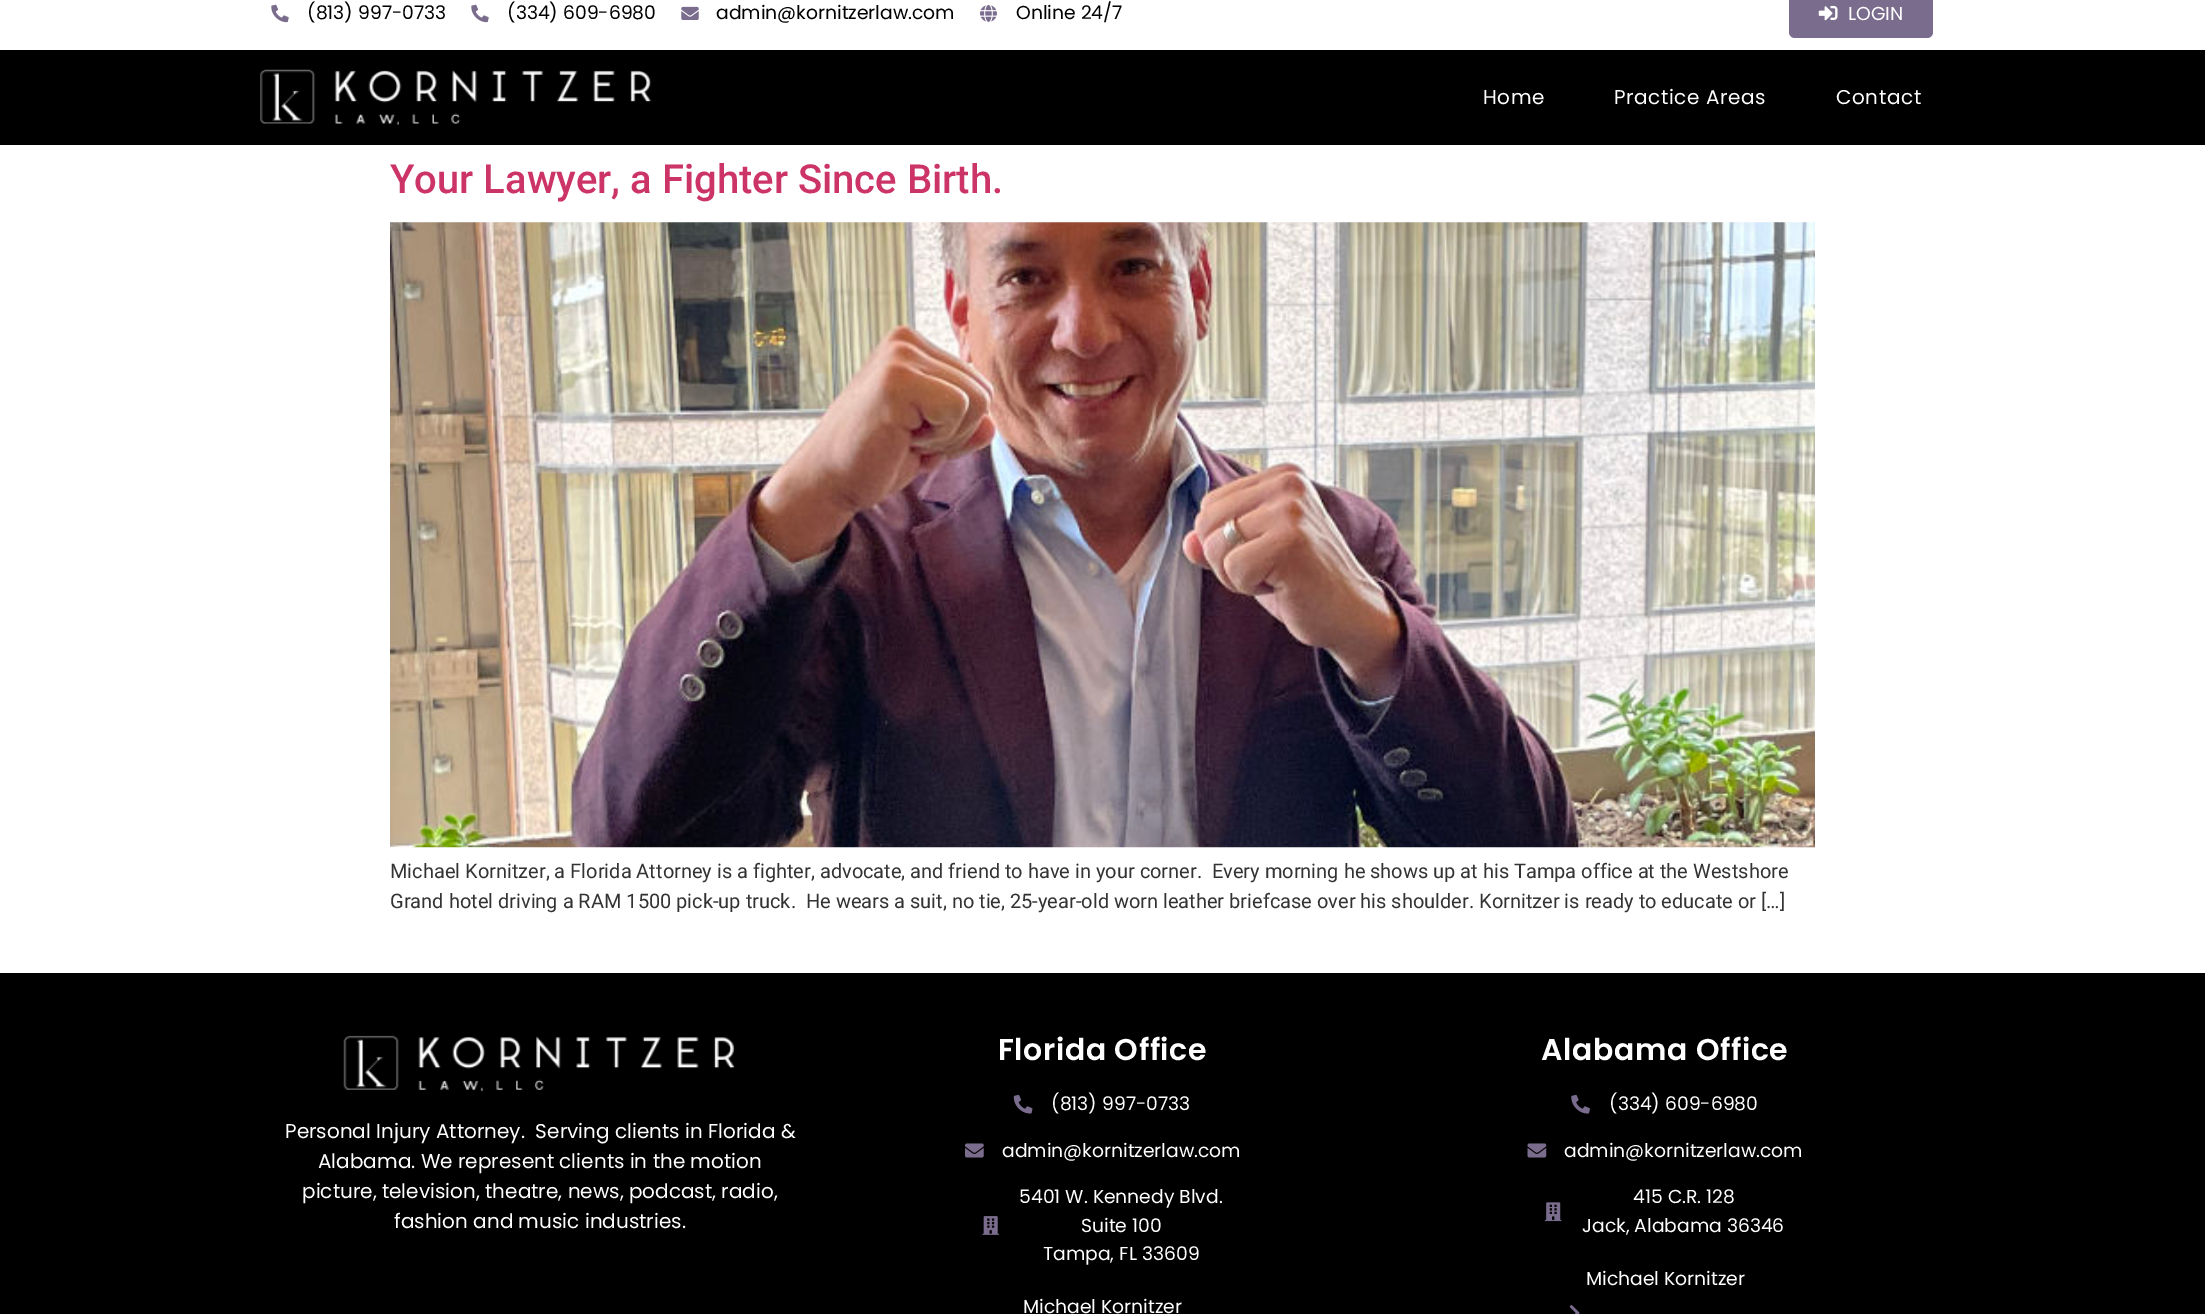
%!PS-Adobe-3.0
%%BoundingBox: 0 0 2205 1314
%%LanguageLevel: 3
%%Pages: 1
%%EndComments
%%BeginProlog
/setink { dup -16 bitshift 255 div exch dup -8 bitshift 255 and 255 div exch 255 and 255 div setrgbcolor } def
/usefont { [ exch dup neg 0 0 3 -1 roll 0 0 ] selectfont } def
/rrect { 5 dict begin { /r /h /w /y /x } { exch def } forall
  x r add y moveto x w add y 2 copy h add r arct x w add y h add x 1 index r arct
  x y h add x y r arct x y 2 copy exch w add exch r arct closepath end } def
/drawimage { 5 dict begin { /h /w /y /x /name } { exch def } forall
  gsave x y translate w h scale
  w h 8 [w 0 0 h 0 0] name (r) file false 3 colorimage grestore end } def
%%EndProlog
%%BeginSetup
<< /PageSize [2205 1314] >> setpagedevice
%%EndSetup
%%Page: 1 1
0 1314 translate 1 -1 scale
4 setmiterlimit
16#FFFFFF setink
0 0 2205 1314 rectfill
(img1.raw) 271 4 18 19 drawimage
/Poppins-Regular 18.75 usefont
16#000000 setink
307 19 moveto (\(813\) 997-0733) show
(img1.raw) 471 4 18 19 drawimage
507 19 moveto (\(334\) 609-6980) show
(img2.raw) 681 6 18 14 drawimage
716 19 moveto (admin@kornitzerlaw.com) show
(img3.raw) 980 5 17 17 drawimage
1016 19 moveto (Online 24/7) show
16#7A6C8D setink
1789 -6 144 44 6 rrect fill
(img4.raw) 1818 5 20 16 drawimage
16#FFFFFF setink
1848 20 moveto (LOGIN) show
16#000000 setink
0 50 2205 95 rectfill
(img5.raw) 260 69 392 56 drawimage
/Poppins-Regular 20 usefont
16#FFFFFF setink
1483 104 moveto 0.6 0 (Home) ashow
1614 104 moveto 0.6 0 (Practice Areas) ashow
1836 104 moveto 0.6 0 (Contact) ashow
/Roboto-Medium 40 usefont
16#CC3366 setink
390 193 moveto (Your Lawyer, a Fighter Since Birth.) show
(img6.raw) 390 222 1425 626 drawimage
/Roboto-Regular 20 usefont
16#333333 setink
390 878 moveto (Michael Kornitzer, a Florida Attorney is a fighter, advocate, and friend to have in your corner.  Every morning he shows up at his Tampa office at the Westshore) show
390 908 moveto (Grand hotel driving a RAM 1500 pick-up truck.  He wears a suit, no tie, 25-year-old worn leather briefcase over his shoulder. Kornitzer is ready to educate or […]) show
16#000000 setink
0 973 2205 341 rectfill
(img7.raw) 343 1035 392 57 drawimage
/Poppins-Regular 20 usefont
16#FFFFFF setink
[
    [(Personal Injury Attorney.  Serving clients in Florida &) 285 1138]
    [(Alabama. We represent clients in the motion) 318 1168]
    [(picture, television, theatre, news, podcast, radio,) 302 1198]
    [(fashion and music industries.) 394 1228]
] { aload pop moveto show } forall
/Poppins-SemiBold 30 usefont
998 1060 moveto 0.6 0 (Florida Office) ashow
(img8.raw) 1013 1094 20 20 drawimage
/Poppins-Regular 18.75 usefont
1051 1110 moveto (\(813\) 997-0733) show
(img9.raw) 965 1143 19 15 drawimage
1002 1157 moveto (admin@kornitzerlaw.com) show
(img10.raw) 982 1216 17 19 drawimage
[
    [(5401 W. Kennedy Blvd.) 1019 1203]
    [(Suite 100) 1081 1232]
    [(Tampa, FL 33609) 1043 1260]
    [(Michael Kornitzer) 1023 1313]
] { aload pop moveto show } forall
/Poppins-SemiBold 30 usefont
1541 1060 moveto 0.6 0 (Alabama Office) ashow
(img11.raw) 1571 1094 19 20 drawimage
/Poppins-Regular 18.75 usefont
1609 1110 moveto (\(334\) 609-6980) show
(img12.raw) 1527 1143 20 15 drawimage
1564 1157 moveto (admin@kornitzerlaw.com) show
(img13.raw) 1545 1202 17 20 drawimage
[
    [(415 C.R. 128) 1633 1203]
    [(Jack, Alabama 36346) 1582 1232]
    [(Michael Kornitzer) 1586 1285]
] { aload pop moveto show } forall
(img14.raw) 1569 1305 11 9 drawimage
showpage
%%EOF
